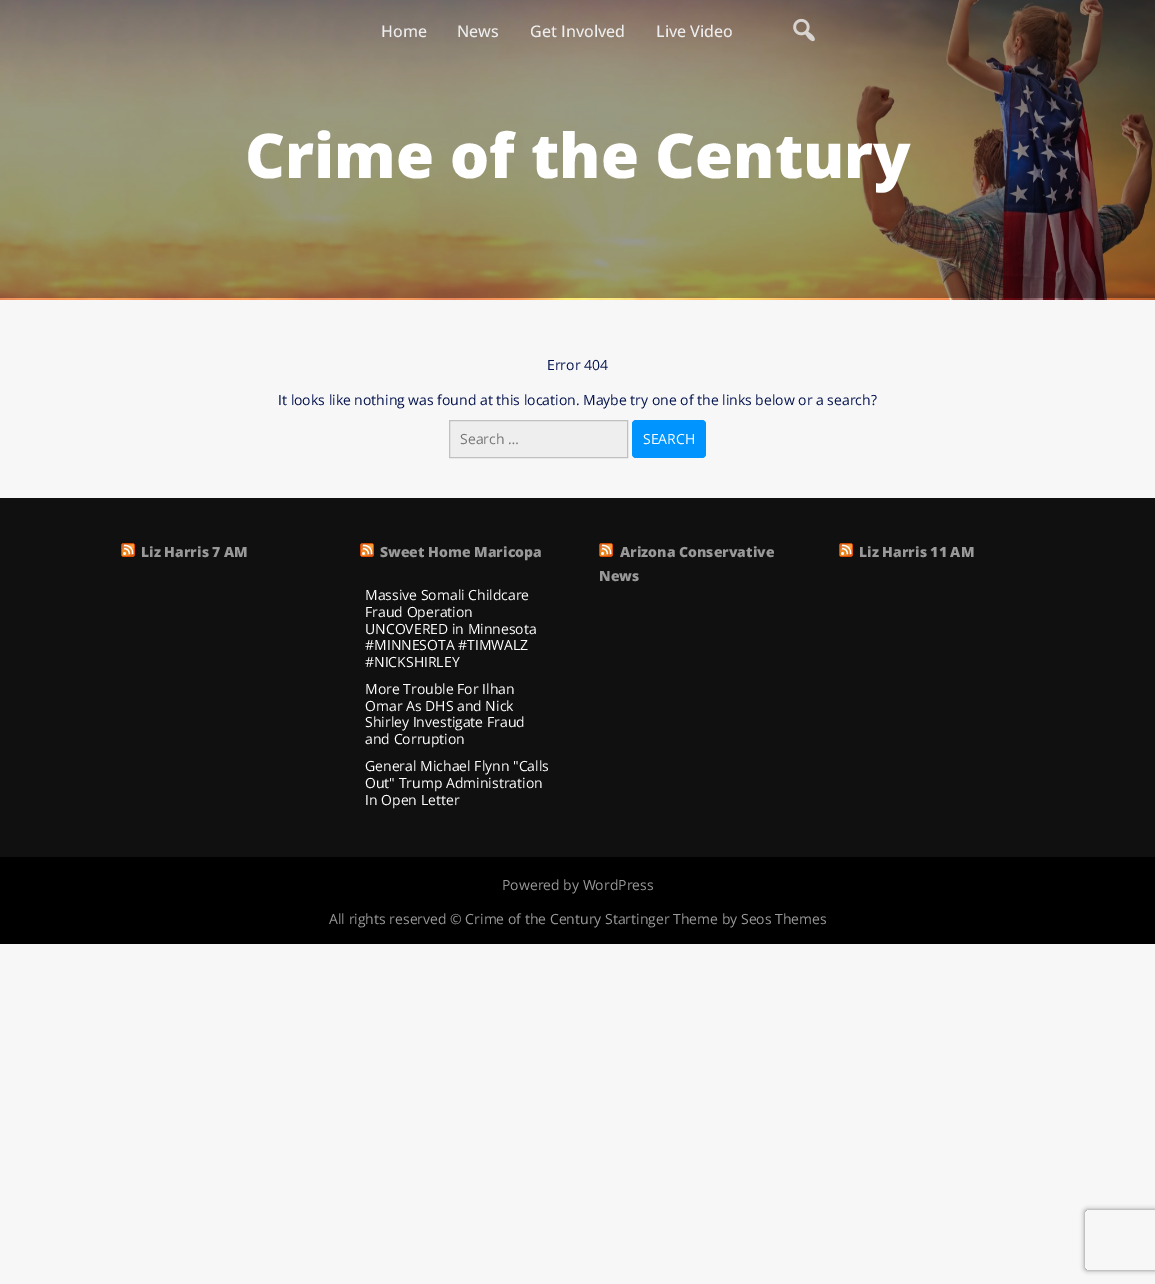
%!PS-Adobe-3.0
%%BoundingBox: 0 0 1155 1284
%%LanguageLevel: 3
%%Pages: 1
%%EndComments
%%BeginProlog
/setink { dup -16 bitshift 255 div exch dup -8 bitshift 255 and 255 div exch 255 and 255 div setrgbcolor } def
/usefont { [ exch dup neg 0 0 3 -1 roll 0 0 ] selectfont } def
/setalpha { dup .setfillconstantalpha .setstrokeconstantalpha } def
/rrect { 5 dict begin { /r /h /w /y /x } { exch def } forall
  x r add y moveto x w add y 2 copy h add r arct x w add y h add x 1 index r arct
  x y h add x y r arct x y 2 copy exch w add exch r arct closepath end } def
/softshadow { 12 dict begin { /a /b /q /h /w /y /x } { exch def } forall gsave /was 0 def
  9 -2 -9 { dup b mul 4 div /e exch def 1 sub .425 mul 2.718 exch exp 1 add a .99 .min exch div /now exch def
    1 1 now sub 1 was sub div sub setalpha /was now def
    w h .min e 2 mul add 0 gt { x e sub y e sub w e 2 mul add h e 2 mul add
      q e add b .6 mul add w h .min 2 div e add .min 0 .max rrect fill } if } for grestore end } def
/drawimage { 5 dict begin { /h /w /y /x /name } { exch def } forall
  gsave x y translate w h scale
  w h 8 [w 0 0 h 0 0] name (r) file false 3 colorimage grestore end } def
%%EndProlog
%%BeginSetup
<< /PageSize [1155 1284] /PageUsesTransparency true >> setpagedevice
%%EndSetup
%%Page: 1 1
0 .pushpdf14devicefilter
0 1284 translate 1 -1 scale
4 setmiterlimit
16#F7F7F7 setink
0 0 1155 1284 rectfill
(img2.raw) 0 0 1155 300 drawimage
/OpenSans-Medium 16 usefont
16#EEEEEE setink
[
    [(Home) 381 37]
    [(News) 457 37]
    [(Get Involved) 530 37]
    [(Live Video) 656 37]
] { aload pop moveto show } forall
(img1.raw) 793 18 22 24 drawimage
/OpenSans-ExtraBold 61.75 usefont
16#FFFFFF setink
245 178 moveto (Crime of the Century) show
/OpenSans-Regular 14 usefont
16#04134E setink
547 370 moveto (Error 404) show
278 405 moveto (It looks like nothing was found at this location. Maybe try one of the links below or a search?) show
16#EEEEEE setink
449.5 420.5 moveto 627.5 420.5 lineto 627.5 457.5 lineto 449.5 457.5 lineto closepath gsave fill grestore
16#C0C0C0 setink
stroke
16#757575 setink
460 444 moveto (Search …) show
16#0094FF setink
632 420 74 38 4 rrect fill
16#FFFFFF setink
643 444 moveto (SEARCH) show
16#101010 setink
0 498 1155 359 rectfill
(img3.raw) 121 543 14 14 drawimage
/OpenSans-ExtraBold 14 usefont
16#999999 setink
141 557 moveto (Liz Harris 7 AM) show
(img3.raw) 360 543 14 14 drawimage
380 557 moveto (Sweet Home Maricopa) show
/OpenSans-Regular 14 usefont
16#FFFFFF setink
[
    [(Massive Somali Childcare) 365 600]
    [(Fraud Operation) 365 617]
    [(UNCOVERED in Minnesota) 365 634]
    [(#MINNESOTA #TIMWALZ) 365 650]
    [(#NICKSHIRLEY) 365 667]
    [(More Trouble For Ilhan) 365 694]
    [(Omar As DHS and Nick) 365 711]
    [(Shirley Investigate Fraud) 365 727]
    [(and Corruption) 365 744]
    [(General Michael Flynn "Calls) 365 771]
    [(Out" Trump Administration) 365 788]
    [(In Open Letter) 365 805]
] { aload pop moveto show } forall
(img3.raw) 599 543 14 14 drawimage
/OpenSans-ExtraBold 14 usefont
16#999999 setink
620 557 moveto (Arizona Conservative) show
599 581 moveto (News) show
(img3.raw) 839 543 14 14 drawimage
859 557 moveto (Liz Harris 11 AM) show
16#000000 setink
0 857 1155 87 rectfill
/OpenSans-Regular 14 usefont
16#999999 setink
502 890 moveto (Powered by WordPress) show
329 924 moveto (All rights reserved © Crime of the Century Startinger Theme by Seos Themes) show
gsave
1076 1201 moveto 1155 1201 lineto 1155 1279 lineto 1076 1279 lineto closepath 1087 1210 moveto 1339 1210 lineto 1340 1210 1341 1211 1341 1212 curveto 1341 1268 lineto 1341 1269 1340 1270 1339 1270 curveto 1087 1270 lineto 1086 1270 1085 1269 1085 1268 curveto 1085 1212 lineto 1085 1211 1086 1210 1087 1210 curveto closepath eoclip newpath
16#808080 setink
1085 1210 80 60 2 2.5 1 softshadow
grestore
.poppdf14devicefilter showpage
%%EOF
